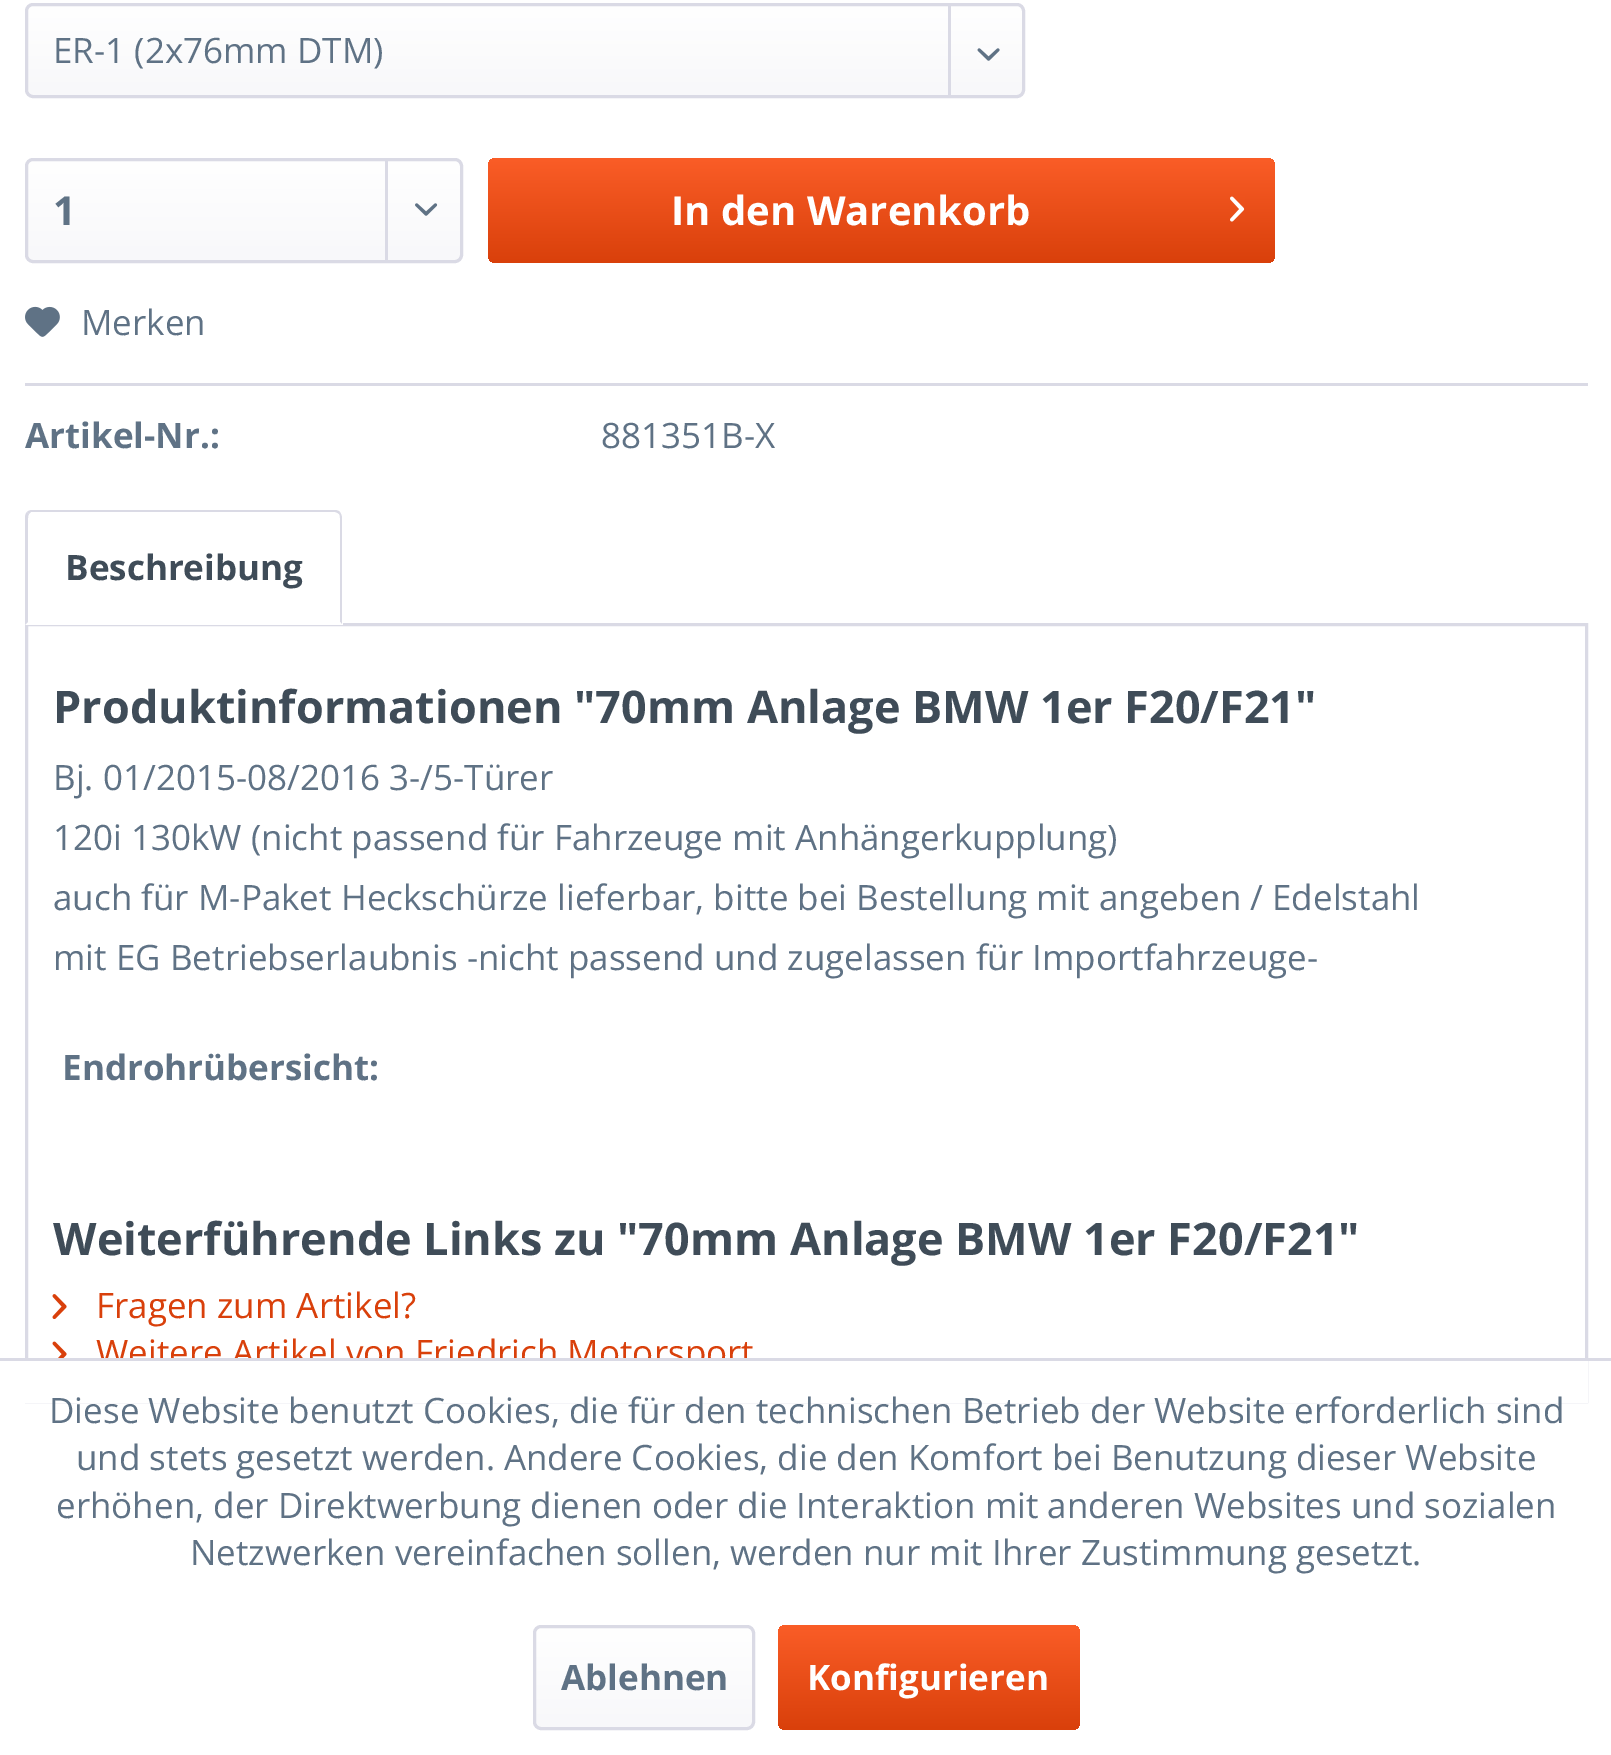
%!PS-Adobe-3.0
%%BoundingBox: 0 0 1611 1755
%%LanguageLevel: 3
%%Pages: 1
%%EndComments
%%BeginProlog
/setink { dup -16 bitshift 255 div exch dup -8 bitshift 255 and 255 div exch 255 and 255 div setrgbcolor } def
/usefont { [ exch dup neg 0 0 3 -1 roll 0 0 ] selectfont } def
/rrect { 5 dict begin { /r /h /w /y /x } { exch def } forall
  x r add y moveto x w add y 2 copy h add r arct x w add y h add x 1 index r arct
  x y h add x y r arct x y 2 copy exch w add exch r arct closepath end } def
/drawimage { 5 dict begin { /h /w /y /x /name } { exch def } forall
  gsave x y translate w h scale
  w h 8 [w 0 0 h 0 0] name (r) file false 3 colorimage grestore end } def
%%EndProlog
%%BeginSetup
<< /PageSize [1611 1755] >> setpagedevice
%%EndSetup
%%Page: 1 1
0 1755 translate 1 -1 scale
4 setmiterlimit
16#FFFFFF setink
0 0 1611 1755 rectfill
gsave 28 5 995 90 5 rrect clip newpath
<< /ShadingType 2 /ColorSpace /DeviceRGB /Coords [525 5 525 95] /Extend [true true] /Function << /FunctionType 2 /Domain [0 1] /C0 [1 1 1] /C1 [0.973 0.973 0.98] /N 1 >> >> shfill grestore
16#DADAE5 setink
3 setlinewidth
26.5 4.5 997 92 6.5 rrect stroke
/OpenSans-Regular 35 usefont
16#5F7285 setink
53 63 moveto (ER-1 \(2x76mm DTM\)) show
16#DADAE5 setink
948 5 3 90 rectfill
(img1.raw) 977 48 23 13 drawimage
gsave 28 160 432 100 5 rrect clip newpath
<< /ShadingType 2 /ColorSpace /DeviceRGB /Coords [244 160 244 260] /Extend [true true] /Function << /FunctionType 2 /Domain [0 1] /C0 [1 1 1] /C1 [0.973 0.973 0.98] /N 1 >> >> shfill grestore
26.5 159.5 435 102 6.5 rrect stroke
/OpenSans-Bold 40 usefont
16#5F7285 setink
53 225 moveto (1) show
16#DADAE5 setink
385 160 3 100 rectfill
(img2.raw) 415 203 23 13 drawimage
gsave 488 158 787 105 8 rrect clip newpath
<< /ShadingType 2 /ColorSpace /DeviceRGB /Coords [881 157 881 263] /Extend [true true] /Function << /FunctionType 2 /Domain [0 1] /C0 [0.98 0.365 0.153] /C1 [0.851 0.251 0.043] /N 1 >> >> shfill grestore
16#FFFFFF setink
671 225 moveto (In den Warenkorb) show
(img3.raw) 1230 196 15 26 drawimage
16#DADAE5 setink
25 383 1563 3 rectfill
(img4.raw) 25 306 35 31 drawimage
/OpenSans-Regular 35 usefont
16#5F7285 setink
81 335 moveto (Merken) show
/OpenSans-Bold 35 usefont
25 448 moveto (Artikel-Nr.:) show
/OpenSans-Regular 35 usefont
601 448 moveto (881351B-X) show
16#DADAE5 setink
26.5 624.5 1560 777 rectstroke
16#FFFFFF setink
33 510 moveto 335 510 lineto 339.5 510 343 513.5 343 518 curveto 343 625 lineto 25 625 lineto 25 518 lineto 25 513.5 28.5 510 33 510 curveto closepath fill
16#DADAE5 setink
32 510 moveto 30 510 28 511 27 512 curveto 29 514 lineto 31 512 lineto 335 512 lineto 336 512 338 513 339 514 curveto 340 512 lineto 339 511 337 510 335 510 curveto closepath fill
340 512 moveto 341 514 342 516 342 518 curveto 342 624 lineto 340 622 lineto 340 518 lineto 340 516 340 515 339 514 curveto closepath fill
16#FFFFFF setink
342 625 moveto 340 622 lineto 28 622 lineto 25 625 lineto closepath fill
16#DADAE5 setink
25 625 moveto 28 622 lineto 28 518 lineto 28 517 28 515 29 514 curveto 27 512 lineto 26 513 25 515 25 518 curveto closepath fill
/OpenSans-Bold 35 usefont
16#3F4C58 setink
65 580 moveto (Beschreibung) show
/OpenSans-Bold 45 usefont
53 723 moveto (Produktinformationen "70mm Anlage BMW 1er F20/F21") show
/OpenSans-Regular 35 usefont
16#5F7285 setink
[
    [(Bj. 01/2015-08/2016 3-/5-Türer) 53 790]
    [(120i 130kW \(nicht passend für Fahrzeuge mit Anhängerkupplung\)) 53 850]
    [(auch für M-Paket Heckschürze lieferbar, bitte bei Bestellung mit angeben / Edelstahl) 53 910]
    [(mit EG Betriebserlaubnis -nicht passend und zugelassen für Importfahrzeuge-) 53 970]
] { aload pop moveto show } forall
/OpenSans-Bold 35 usefont
62 1080 moveto (Endrohrübersicht:) show
/OpenSans-Bold 45 usefont
16#3F4C58 setink
53 1255 moveto (Weiterführende Links zu "70mm Anlage BMW 1er F20/F21") show
(img5.raw) 52 1294 15 25 drawimage
/OpenSans-Regular 35 usefont
16#D9400B setink
96 1318 moveto (Fragen zum Artikel?) show
(img6.raw) 52 1341 15 17 drawimage
96 1365 moveto (Weitere Artikel von Friedrich Motorsport) show
16#FFFFFF setink
25 1361 1563 42 rectfill
16#DADAE5 setink
0 1358 1611 3 rectfill
16#5F7285 setink
[
    [(Diese Website benutzt Cookies, die für den technischen Betrieb der Website erforderlich sind) 49 1423]
    [(und stets gesetzt werden. Andere Cookies, die den Komfort bei Benutzung dieser Website) 76 1470]
    [(erhöhen, der Direktwerbung dienen oder die Interaktion mit anderen Websites und sozialen) 56 1518]
    [(Netzwerken vereinfachen sollen, werden nur mit Ihrer Zustimmung gesetzt.) 190 1565]
] { aload pop moveto show } forall
gsave 535 1628 218 100 5 rrect clip newpath
<< /ShadingType 2 /ColorSpace /DeviceRGB /Coords [644 1628 644 1728] /Extend [true true] /Function << /FunctionType 2 /Domain [0 1] /C0 [1 1 1] /C1 [0.973 0.973 0.98] /N 1 >> >> shfill grestore
16#DADAE5 setink
534.5 1626.5 219 102 6.5 rrect stroke
/OpenSans-Bold 35 usefont
16#5F7285 setink
561 1690 moveto (Ablehnen) show
gsave 778 1625 302 105 8 rrect clip newpath
<< /ShadingType 2 /ColorSpace /DeviceRGB /Coords [929 1625 929 1730] /Extend [true true] /Function << /FunctionType 2 /Domain [0 1] /C0 [0.98 0.365 0.153] /C1 [0.851 0.251 0.043] /N 1 >> >> shfill grestore
16#FFFFFF setink
807 1690 moveto (Konfigurieren) show
showpage
%%EOF
